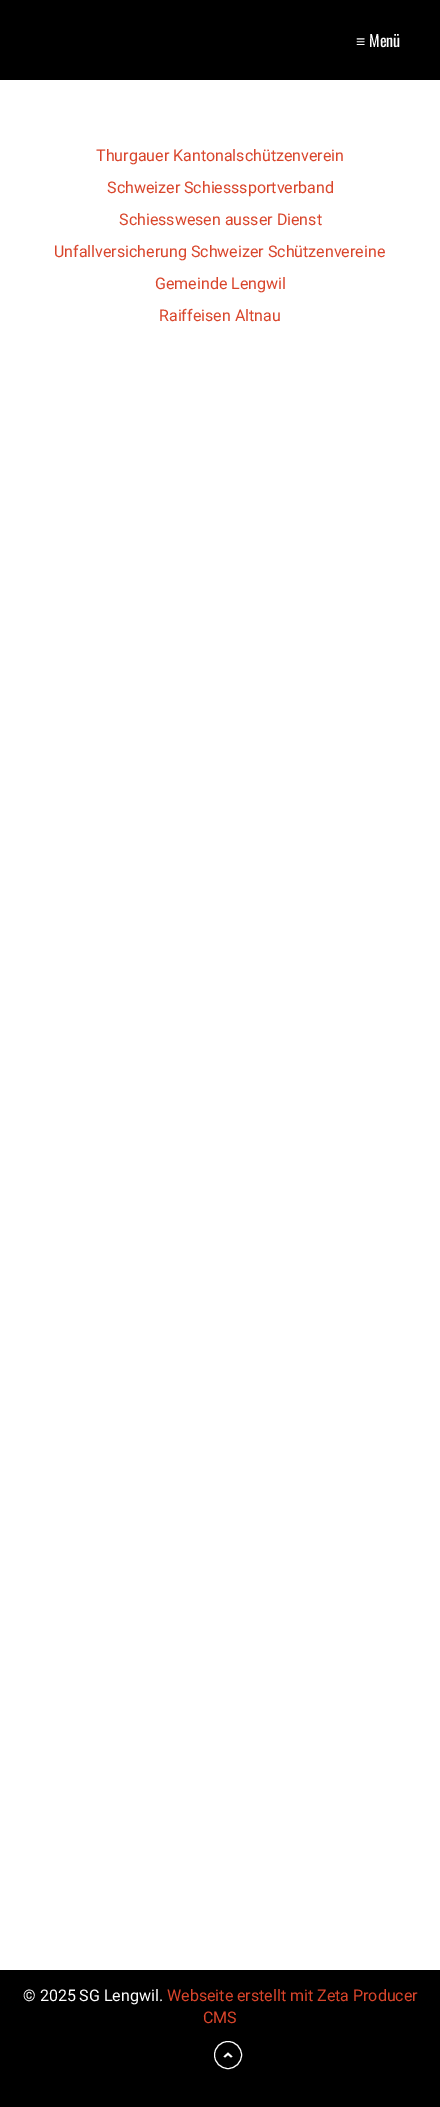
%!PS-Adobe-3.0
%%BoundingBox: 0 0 440 2107
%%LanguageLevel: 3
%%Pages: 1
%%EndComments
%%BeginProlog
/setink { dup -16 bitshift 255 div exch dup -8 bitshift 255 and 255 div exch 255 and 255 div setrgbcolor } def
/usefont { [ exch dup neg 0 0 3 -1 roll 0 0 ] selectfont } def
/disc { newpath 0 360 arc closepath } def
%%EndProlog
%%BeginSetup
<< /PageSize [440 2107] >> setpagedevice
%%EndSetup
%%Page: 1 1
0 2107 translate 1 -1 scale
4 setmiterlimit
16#FFFFFF setink
0 0 440 2107 rectfill
16#000000 setink
0 0 440 80 rectfill
/LiberationSans-Regular 16 usefont
16#FFFFFF setink
356 47 moveto (≡) show
/Oswald-Regular 16 usefont
369 47 moveto (Menü) show
/Roboto-Regular 16 usefont
16#D9452B setink
[
    [(Thurgauer Kantonalschützenverein) 96 161]
    [(Schweizer Schiesssportverband) 107 193]
    [(Schiesswesen ausser Dienst) 119 225]
    [(Unfallversicherung Schweizer Schützenvereine) 54 257]
    [(Gemeinde Lengwil) 155 289]
    [(Raiffeisen Altnau) 159 321]
] { aload pop moveto show } forall
16#000000 setink
0 1970 440 137 rectfill
16#FFFFFF setink
23 2001 moveto (© 2025 SG Lengwil.) show
16#D9452B setink
167 2001 moveto (Webseite erstellt mit Zeta Producer) show
203 2023 moveto (CMS) show
16#FFFFFF setink
228 2055 13.5 disc stroke
223.5 2056.5 moveto 225 2057.5 lineto 228 2055 lineto 231 2057.5 lineto 232.5 2056.5 lineto 228 2052.5 lineto closepath fill
showpage
%%EOF
